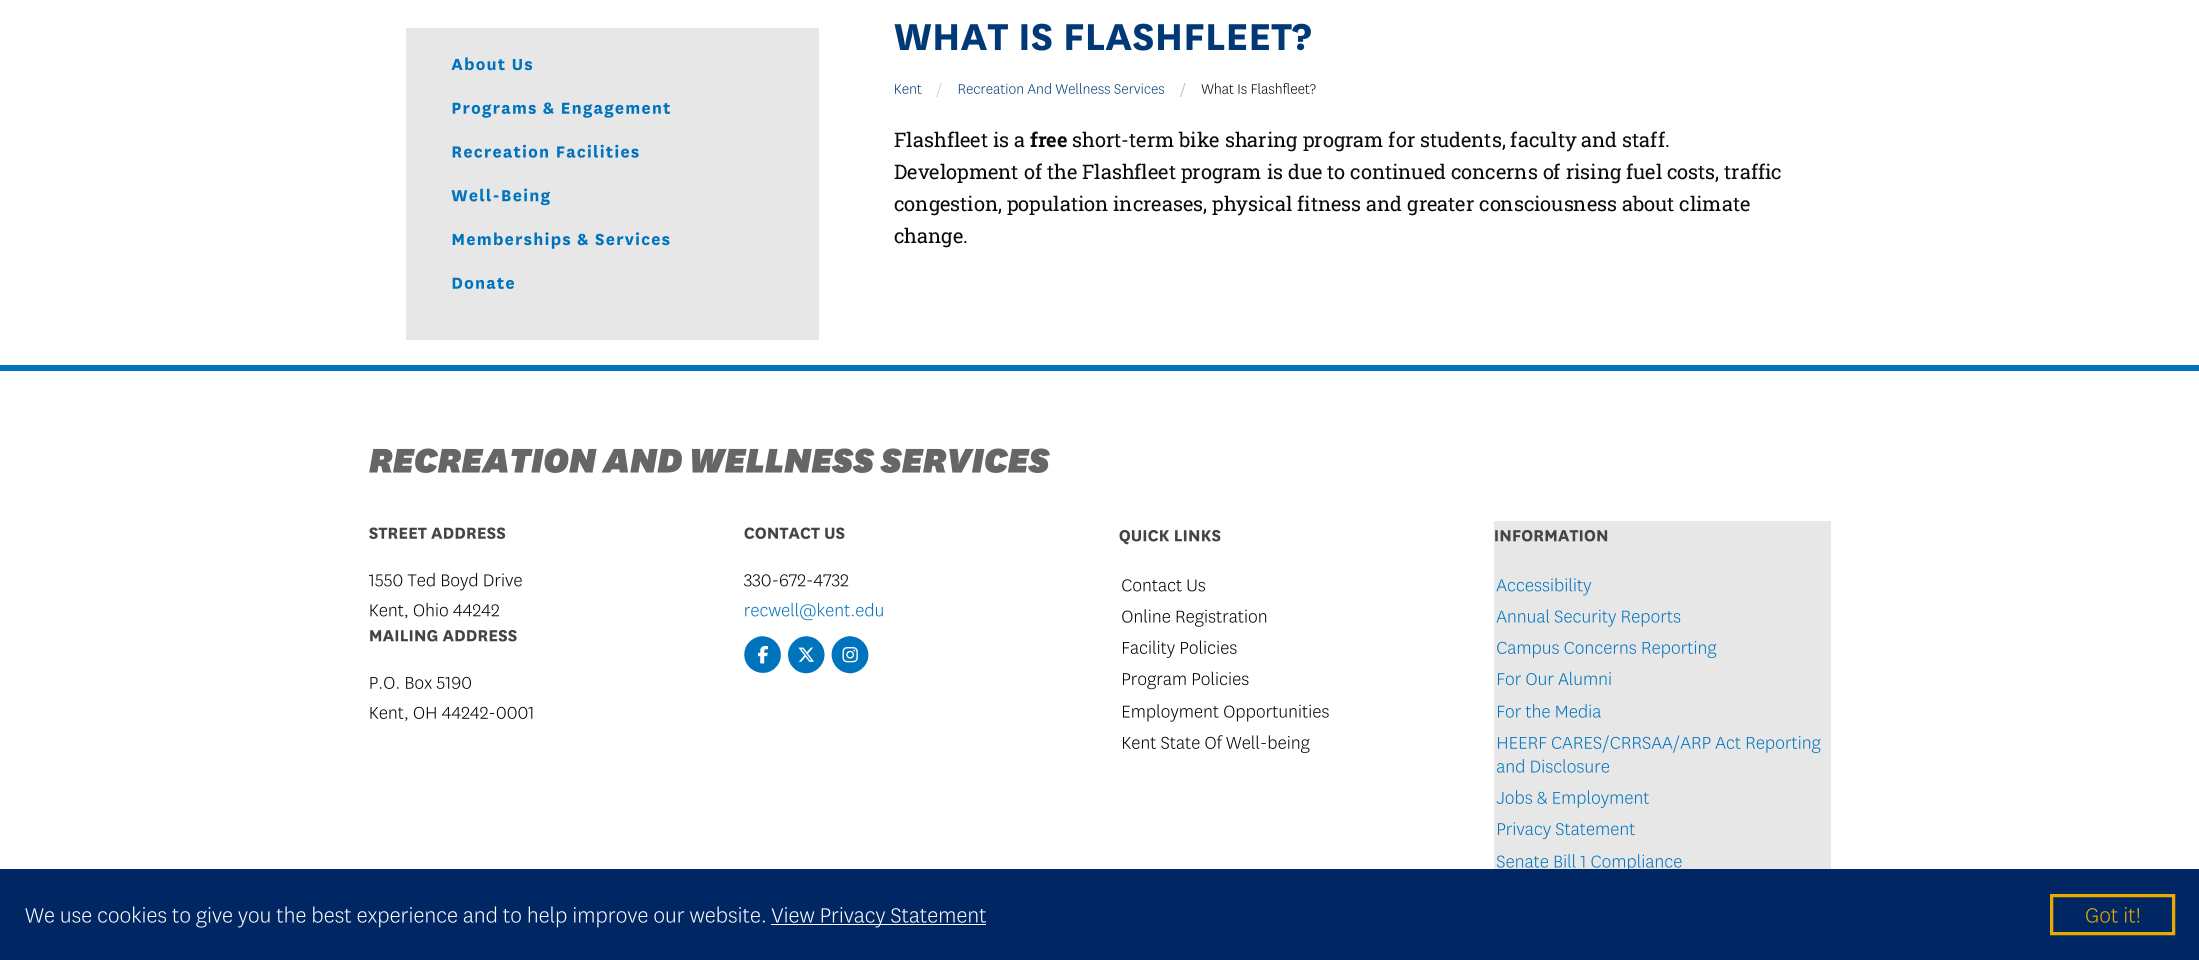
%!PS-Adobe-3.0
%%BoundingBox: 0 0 2199 960
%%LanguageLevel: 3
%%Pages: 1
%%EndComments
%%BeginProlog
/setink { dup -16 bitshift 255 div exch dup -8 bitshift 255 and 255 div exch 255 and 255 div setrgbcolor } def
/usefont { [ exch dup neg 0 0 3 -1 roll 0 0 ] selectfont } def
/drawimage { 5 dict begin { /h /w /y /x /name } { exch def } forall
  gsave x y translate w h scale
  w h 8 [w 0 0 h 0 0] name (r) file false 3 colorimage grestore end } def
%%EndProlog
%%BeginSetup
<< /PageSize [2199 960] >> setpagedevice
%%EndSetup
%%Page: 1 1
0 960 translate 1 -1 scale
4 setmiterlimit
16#FFFFFF setink
0 0 2199 960 rectfill
16#E7E7E7 setink
406 28 413 312 rectfill
(img1.raw) 451 57 82 14 drawimage
(img2.raw) 452 102 219 16 drawimage
(img3.raw) 452 144 187 14 drawimage
(img4.raw) 451 188 100 18 drawimage
(img5.raw) 452 232 218 17 drawimage
(img6.raw) 452 277 62 12 drawimage
(img7.raw) 894 23 417 28 drawimage
(img8.raw) 895 84 27 10 drawimage
16#CACACA setink
941 83 moveto 941.5 83 lineto 937 97 lineto 936.5 97 lineto closepath fill
(img9.raw) 958 83 207 11 drawimage
1184.5 83 moveto 1185.5 83 lineto 1181 97 lineto 1180 97 lineto closepath fill
(img10.raw) 1201 83 115 11 drawimage
/RobotoSlab-Regular 20 usefont
16#0A0A0A setink
894 147 moveto (Flashfleet is a) show
/RobotoSlab-Bold 20 usefont
1030 147 moveto (free) show
/RobotoSlab-Regular 20 usefont
[
    [(short-term bike sharing program for students, faculty and staff.) 1072 147]
    [(Development of the Flashfleet program is due to continued concerns of rising fuel costs, traffic) 894 179]
    [(congestion, population increases, physical fitness and greater consciousness about climate) 894 211]
    [(change.) 894 243]
] { aload pop moveto show } forall
16#0073BD setink
0 365 2199 6 rectfill
(img11.raw) 369 448 681 25 drawimage
(img12.raw) 369 527 137 12 drawimage
(img13.raw) 369 572 153 19 drawimage
(img14.raw) 370 602 130 17 drawimage
(img15.raw) 370 630 147 12 drawimage
(img16.raw) 370 676 101 13 drawimage
(img17.raw) 370 706 163 15 drawimage
(img18.raw) 744 527 101 12 drawimage
(img19.raw) 744 574 105 13 drawimage
(img20.raw) 745 602 138 19 drawimage
749.5 642 moveto 752.5 639 756.5 637 760.5 636.5 curveto 777.5 635 787.5 655.5 775.5 667.5 curveto 763.5 679.5 743 669.5 744.5 653 curveto 745 648.5 746.5 645 749.5 642 curveto closepath fill
(img21.raw) 757 645 11 19 drawimage
793.5 642 moveto 796.5 639 800 637 804.5 636.5 curveto 821.5 635 831 655.5 819 667.5 curveto 816 670.5 812.5 672.5 808 673 curveto 791 674.5 781.5 654 793.5 642 curveto closepath fill
(img22.raw) 798 647 16 15 drawimage
837 642 moveto 840 639 844 637 848 636.5 curveto 865 635 875 655.5 863 667.5 curveto 860 670.5 856 672.5 852 673 curveto 835 674.5 825 654 837 642 curveto closepath fill
(img23.raw) 842 647 16 16 drawimage
(img24.raw) 1119 530 102 15 drawimage
(img25.raw) 1122 579 83 13 drawimage
(img26.raw) 1122 609 145 18 drawimage
(img27.raw) 1123 640 114 18 drawimage
(img28.raw) 1123 671 126 19 drawimage
(img29.raw) 1123 704 206 18 drawimage
(img30.raw) 1123 735 187 18 drawimage
16#E7E7E7 setink
1494 521 337 348 rectfill
(img31.raw) 1495 530 113 12 drawimage
(img32.raw) 1496 577 96 19 drawimage
(img33.raw) 1496 609 185 18 drawimage
(img34.raw) 1497 640 220 18 drawimage
(img35.raw) 1498 671 113 15 drawimage
(img36.raw) 1498 704 103 14 drawimage
(img37.raw) 1498 735 323 18 drawimage
(img38.raw) 1497 759 112 14 drawimage
(img39.raw) 1496 790 153 18 drawimage
(img40.raw) 1498 822 137 18 drawimage
(img41.raw) 1496 854 186 15 drawimage
16#002664 setink
0 869 2199 91 rectfill
(img42.raw) 25 906 740 22 drawimage
16#FFFFFF setink
771 924 215 1 rectfill
(img43.raw) 771 907 216 21 drawimage
16#EAAB00 setink
3 setlinewidth
2051.5 895.5 122 38 rectstroke
(img44.raw) 2086 907 54 16 drawimage
showpage
%%EOF
